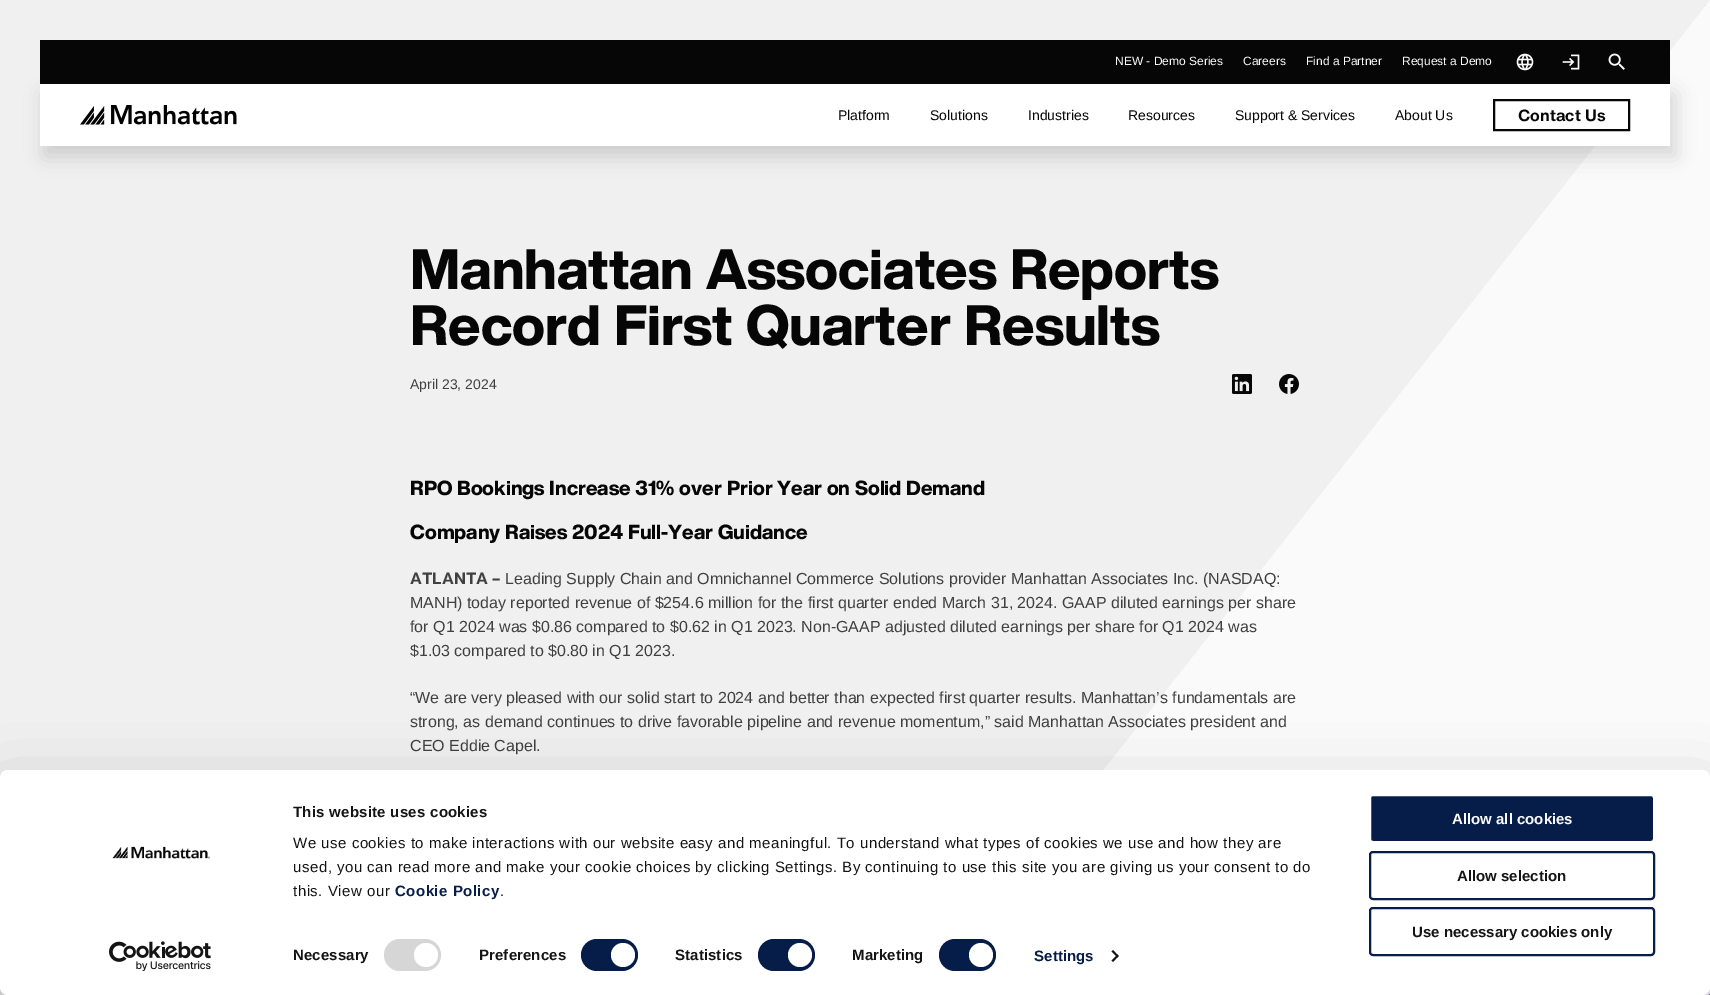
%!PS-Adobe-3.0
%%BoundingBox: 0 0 1710 995
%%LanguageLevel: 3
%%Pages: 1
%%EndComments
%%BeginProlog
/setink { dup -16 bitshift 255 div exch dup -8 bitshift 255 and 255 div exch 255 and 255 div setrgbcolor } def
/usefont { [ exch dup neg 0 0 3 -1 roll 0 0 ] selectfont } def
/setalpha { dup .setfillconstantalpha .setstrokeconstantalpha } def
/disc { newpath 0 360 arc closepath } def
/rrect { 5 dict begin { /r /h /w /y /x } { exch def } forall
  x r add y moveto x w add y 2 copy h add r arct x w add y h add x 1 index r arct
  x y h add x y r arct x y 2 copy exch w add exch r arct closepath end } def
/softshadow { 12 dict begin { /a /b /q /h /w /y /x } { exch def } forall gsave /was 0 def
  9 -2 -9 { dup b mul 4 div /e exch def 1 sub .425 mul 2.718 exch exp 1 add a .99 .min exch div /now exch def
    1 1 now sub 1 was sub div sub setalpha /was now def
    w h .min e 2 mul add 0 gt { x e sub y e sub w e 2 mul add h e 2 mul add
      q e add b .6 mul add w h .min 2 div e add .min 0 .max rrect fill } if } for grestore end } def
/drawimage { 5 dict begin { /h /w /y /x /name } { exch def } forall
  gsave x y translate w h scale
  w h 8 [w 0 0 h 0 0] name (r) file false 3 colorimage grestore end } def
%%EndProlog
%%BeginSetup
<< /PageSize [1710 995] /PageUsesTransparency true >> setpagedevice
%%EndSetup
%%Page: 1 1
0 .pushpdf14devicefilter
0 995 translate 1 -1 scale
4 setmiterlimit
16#FAFAFA setink
0 0 1710 995 rectfill
16#F0F0F0 setink
0 0 moveto 1710 0 lineto 0 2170 lineto closepath fill
16#070606 setink
40 40 1630 44 rectfill
16#000000 setink
45 94 1630 62 0 10 0.15 softshadow
/LiberationSans-Regular 12 usefont
16#FAFAFA setink
[
    [(NEW - Demo Series) 1115 65]
    [(Careers) 1243 65]
    [(Find a Partner) 1306 65]
    [(Request a Demo) 1402 65]
] { aload pop moveto show } forall
(img1.raw) 1516 53 18 18 drawimage
(img2.raw) 1562 54 18 16 drawimage
(img3.raw) 1608 53 17 17 drawimage
16#FFFFFF setink
40 84 1630 62 rectfill
(img4.raw) 80 105 157 20 drawimage
/LiberationSans-Regular 14 usefont
16#070606 setink
[
    [(Platform) 838 120]
    [(Solutions) 930 120]
    [(Industries) 1028 120]
    [(Resources) 1128 120]
    [(Support & Services) 1235 120]
    [(About Us) 1395 120]
] { aload pop moveto show } forall
2 setlinewidth
1494 100 135 30 rectstroke
/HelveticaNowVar-Bold 16 usefont
1518 121 moveto (Contact Us) show
/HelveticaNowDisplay-ExtraBold 56 usefont
410 289 moveto (Manhattan Associates Reports) show
410 345 moveto (Record First Quarter Results) show
/LiberationSans-Regular 14 usefont
16#404040 setink
410 389 moveto (April 23, 2024) show
(img5.raw) 1232 374 20 20 drawimage
(img6.raw) 1279 374 20 20 drawimage
/HelveticaNowDisplay-ExtraBold 20 usefont
16#070606 setink
410 495 moveto (RPO Bookings Increase 31% over Prior Year on Solid Demand) show
410 539 moveto (Company Raises 2024 Full-Year Guidance) show
/HelveticaNowVar-Bold 16 usefont
16#404040 setink
410 584 moveto (ATLANTA –) show
/LiberationSans-Regular 16 usefont
[
    [(Leading Supply Chain and Omnichannel Commerce Solutions provider Manhattan Associates Inc. \(NASDAQ:) 505 584]
    [(MANH\) today reported revenue of $254.6 million for the first quarter ended March 31, 2024. GAAP diluted earnings per share) 410 608]
    [(for Q1 2024 was $0.86 compared to $0.62 in Q1 2023. Non-GAAP adjusted diluted earnings per share for Q1 2024 was) 410 632]
    [($1.03 compared to $0.80 in Q1 2023.) 410 656]
    [(“We are very pleased with our solid start to 2024 and better than expected first quarter results. Manhattan’s fundamentals are) 410 703]
    [(strong, as demand continues to drive favorable pipeline and revenue momentum,” said Manhattan Associates president and) 410 727]
    [(CEO Eddie Capel.) 410 751]
] { aload pop moveto show } forall
16#492D8C setink
1710 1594 moveto 1239 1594 lineto 1710 994 lineto closepath fill
16#000000 setink
0 800 1710 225 8 35 0.3 softshadow
16#FFFFFF setink
0 770 1710 225 8 rrect fill
(img7.raw) 112 846 98 13 drawimage
(img8.raw) 109 941 102 30 drawimage
/LiberationSans-Bold 15 usefont
16#141414 setink
293 817 moveto 0.25 0 (This website uses cookies) ashow
/LiberationSans-Regular 15 usefont
293 848 moveto 0.5 0 (We use cookies to make interactions with our website easy and meaningful. To understand what types of cookies we use and how they are) ashow
293 872 moveto 0.5 0 (used, you can read more and make your cookie choices by clicking Settings. By continuing to use this site you are giving us your consent to do) ashow
293 896 moveto 0.5 0 (this. View our) ashow
/LiberationSans-Bold 15 usefont
16#071D49 setink
395 896 moveto 0.5 0 (Cookie Policy) ashow
/LiberationSans-Regular 15 usefont
16#141414 setink
500 896 moveto 0.5 0 (.) ashow
/LiberationSans-Bold 15 usefont
293 960 moveto 0.1 0 (Necessary) ashow
16#D6D6D6 setink
384 939 57 32 16 rrect fill
16#FFFFFF setink
426 955 12 disc fill
16#141414 setink
479 960 moveto 0.1 0 (Preferences) ashow
16#071D49 setink
581 939 57 32 16 rrect fill
16#FFFFFF setink
623 955 12 disc fill
16#141414 setink
675 960 moveto 0.1 0 (Statistics) ashow
16#071D49 setink
758 939 57 32 16 rrect fill
16#FFFFFF setink
800 955 12 disc fill
16#141414 setink
852 960 moveto 0.1 0 (Marketing) ashow
16#071D49 setink
939 939 57 32 16 rrect fill
16#FFFFFF setink
981 955 12 disc fill
16#071D49 setink
1034 961 moveto 0.1 0 (Settings) ashow
16#141414 setink
1113 950 moveto 1118.5 956 lineto 1117.5 957.5 lineto 1111.5 951.5 lineto closepath fill
1117.5 954.5 moveto 1118.5 956 lineto 1113 962 lineto 1111.5 960.5 lineto closepath fill
16#071D49 setink
1370 795 284 47 3 rrect gsave fill grestore
16#FFFFFF setink
stroke
16#FAFAFA setink
1452 824 moveto (Allow all cookies) show
16#071D49 setink
1370 852 284 47 3 rrect stroke
16#141414 setink
1457 881 moveto (Allow selection) show
16#071D49 setink
1370 908 284 47 3 rrect stroke
16#141414 setink
1412 937 moveto (Use necessary cookies only) show
.poppdf14devicefilter showpage
%%EOF
